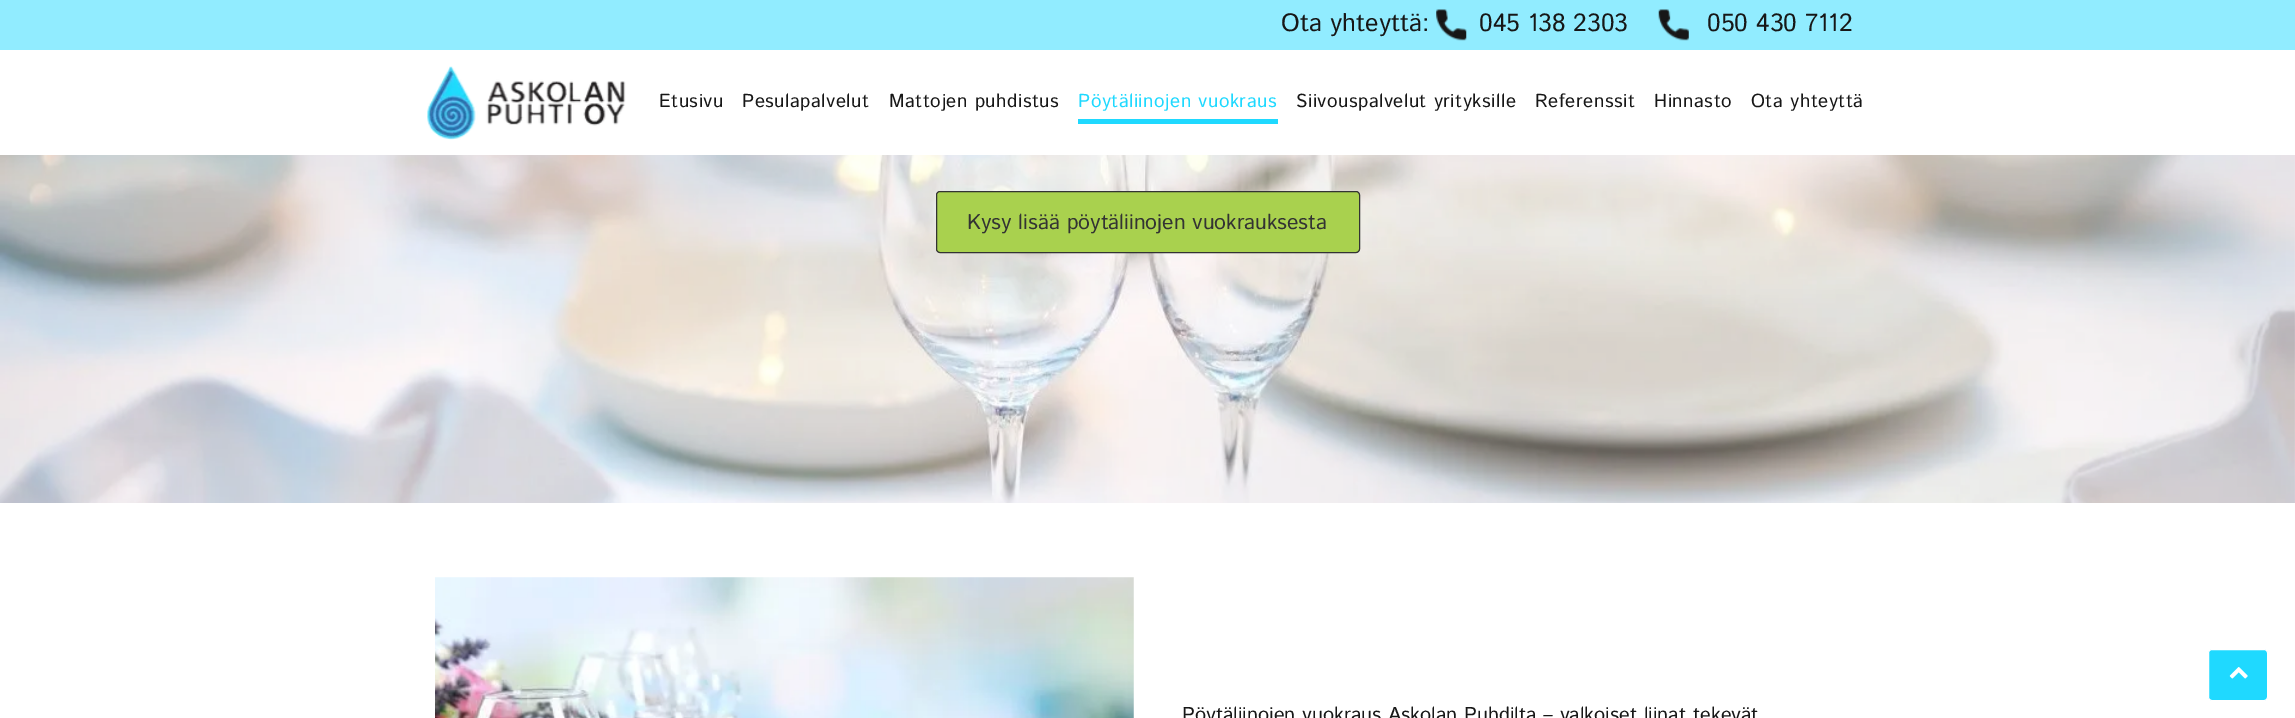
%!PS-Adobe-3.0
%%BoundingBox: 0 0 2295 718
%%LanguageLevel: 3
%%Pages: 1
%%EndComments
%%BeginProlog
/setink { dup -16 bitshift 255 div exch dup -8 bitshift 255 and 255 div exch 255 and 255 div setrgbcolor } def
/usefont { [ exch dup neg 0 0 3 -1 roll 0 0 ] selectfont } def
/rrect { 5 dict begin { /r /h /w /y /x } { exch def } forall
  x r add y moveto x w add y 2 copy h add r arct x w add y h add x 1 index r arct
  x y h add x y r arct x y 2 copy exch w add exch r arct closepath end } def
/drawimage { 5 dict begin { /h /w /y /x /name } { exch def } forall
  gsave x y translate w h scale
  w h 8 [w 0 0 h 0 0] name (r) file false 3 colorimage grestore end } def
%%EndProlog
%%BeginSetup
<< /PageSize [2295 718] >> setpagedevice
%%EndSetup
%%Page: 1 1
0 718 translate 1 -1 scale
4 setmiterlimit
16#FFFFFF setink
0 0 2295 718 rectfill
16#91ECFF setink
0 0 2295 50 rectfill
/IstokWeb-Regular 25 usefont
16#171717 setink
1281 31 moveto (Ota yhteyttä:) show
(img1.raw) 1436 9 31 32 drawimage
1479 31 moveto (045 138 2303) show
(img2.raw) 1658 9 31 32 drawimage
1707 31 moveto (050 430 7112) show
(img3.raw) 427 66 199 74 drawimage
/IstokWeb-Regular 18.75 usefont
659 107 moveto 0.55 0 (Etusivu) ashow
742 107 moveto 0.55 0 (Pesulapalvelut) ashow
889 107 moveto 0.55 0 (Mattojen puhdistus) ashow
16#1FD9FF setink
1078 107 moveto 0.55 0 (Pöytäliinojen vuokraus) ashow
1078 119 200 5 rectfill
16#171717 setink
1296 107 moveto 0.55 0 (Siivouspalvelut yrityksille) ashow
1535 107 moveto 0.55 0 (Referenssit) ashow
1654 107 moveto 0.55 0 (Hinnasto) ashow
1751 107 moveto 0.55 0 (Ota yhteyttä) ashow
(img4.raw) 0 155 2295 348 drawimage
16#A9D14E setink
936.5 191.5 423 61 3.5 rrect gsave fill grestore
16#333333 setink
stroke
/IstokWeb-Regular 21.25 usefont
967 229 moveto (Kysy lisää pöytäliinojen vuokrauksesta) show
(img5.raw) 435 577 699 141 drawimage
/IstokWeb-Regular 20 usefont
16#171717 setink
1182 721 moveto (Pöytäliinojen vuokraus Askolan Puhdilta – valkoiset liinat tekevät) show
16#1FD9FF setink
2208.5 649.5 59 51 3.5 rrect gsave fill grestore
16#FFFFFF setink
stroke
(img6.raw) 2229 667 19 12 drawimage
showpage
%%EOF
